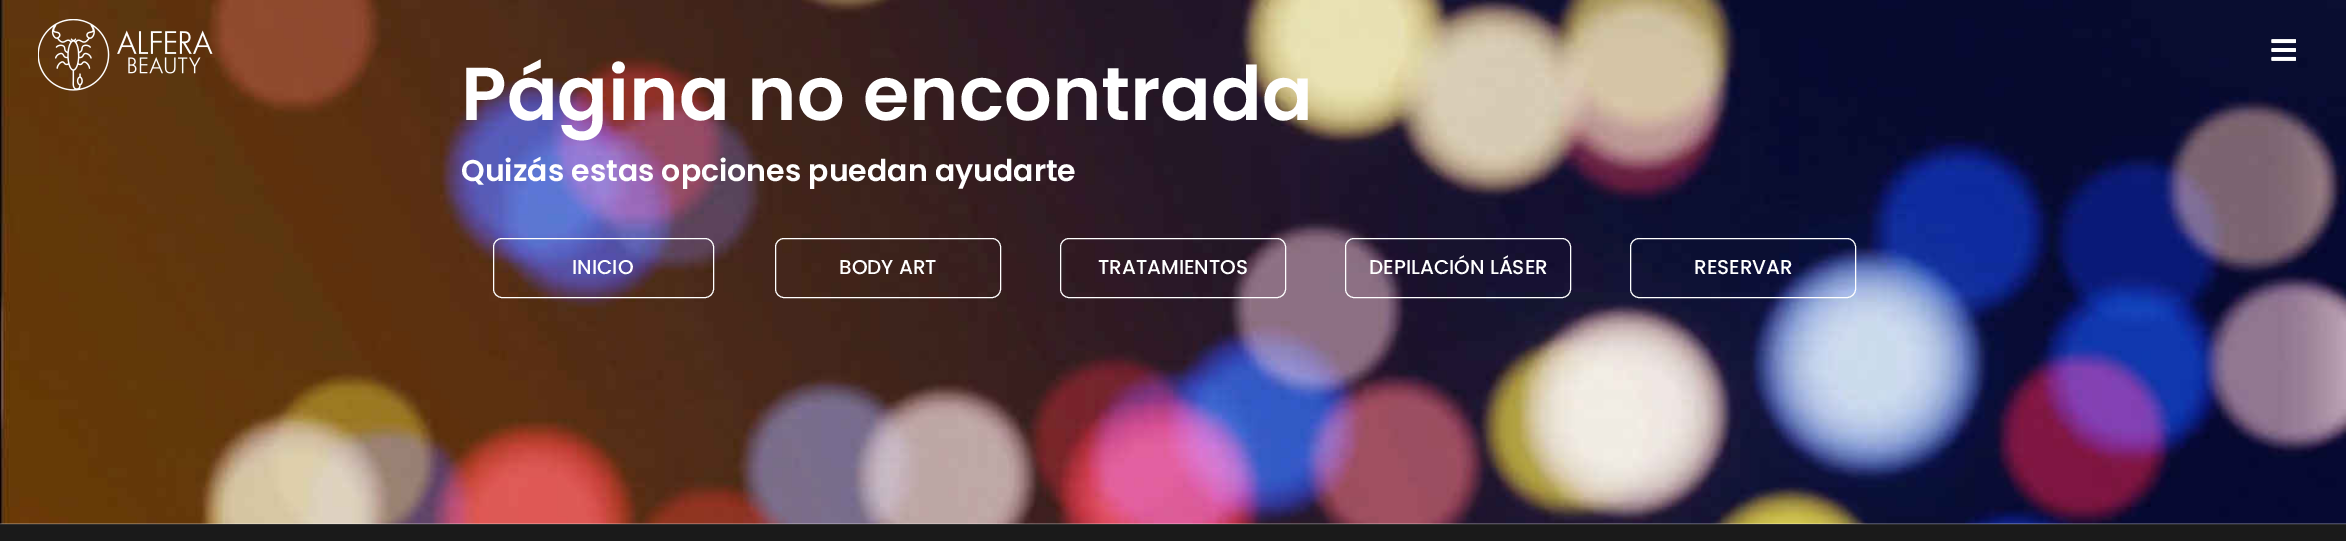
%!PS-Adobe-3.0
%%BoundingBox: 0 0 2346 541
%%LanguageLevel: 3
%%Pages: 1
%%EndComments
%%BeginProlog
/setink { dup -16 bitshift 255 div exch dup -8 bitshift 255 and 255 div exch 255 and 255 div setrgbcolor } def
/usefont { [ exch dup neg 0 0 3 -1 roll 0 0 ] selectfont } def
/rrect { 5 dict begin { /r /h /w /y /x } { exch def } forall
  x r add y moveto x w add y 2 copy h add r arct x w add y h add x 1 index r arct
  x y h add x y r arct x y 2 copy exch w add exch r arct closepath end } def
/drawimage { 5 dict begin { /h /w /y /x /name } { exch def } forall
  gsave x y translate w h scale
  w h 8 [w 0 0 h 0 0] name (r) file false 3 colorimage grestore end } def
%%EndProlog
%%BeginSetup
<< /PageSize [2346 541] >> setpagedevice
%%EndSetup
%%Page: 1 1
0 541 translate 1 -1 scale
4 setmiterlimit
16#FFFFFF setink
0 0 2346 541 rectfill
(img3.raw) 0 0 2346 524 drawimage
(img1.raw) 38 19 175 72 drawimage
(img2.raw) 2271 39 25 22 drawimage
/Poppins-SemiBold 75 usefont
461 120 moveto (Página no encontrada) show
/Poppins-SemiBold 30 usefont
461 181 moveto (Quizás estas opciones puedan ayudarte) show
493.5 238.5 220 59 8.5 rrect stroke
/Poppins-Medium 20 usefont
572 274 moveto (INICIO) show
775.5 238.5 225 59 8.5 rrect stroke
839 274 moveto (BODY ART) show
1060.5 238.5 225 59 8.5 rrect stroke
1098 274 moveto (TRATAMIENTOS) show
1345.5 238.5 225 59 8.5 rrect stroke
1369 274 moveto (DEPILACIÓN LÁSER) show
1630.5 238.5 225 59 8.5 rrect stroke
1694 274 moveto (RESERVAR) show
16#1A1A1A setink
0 525 2346 16 rectfill
16#303030 setink
0 524 2346 1 rectfill
showpage
%%EOF
